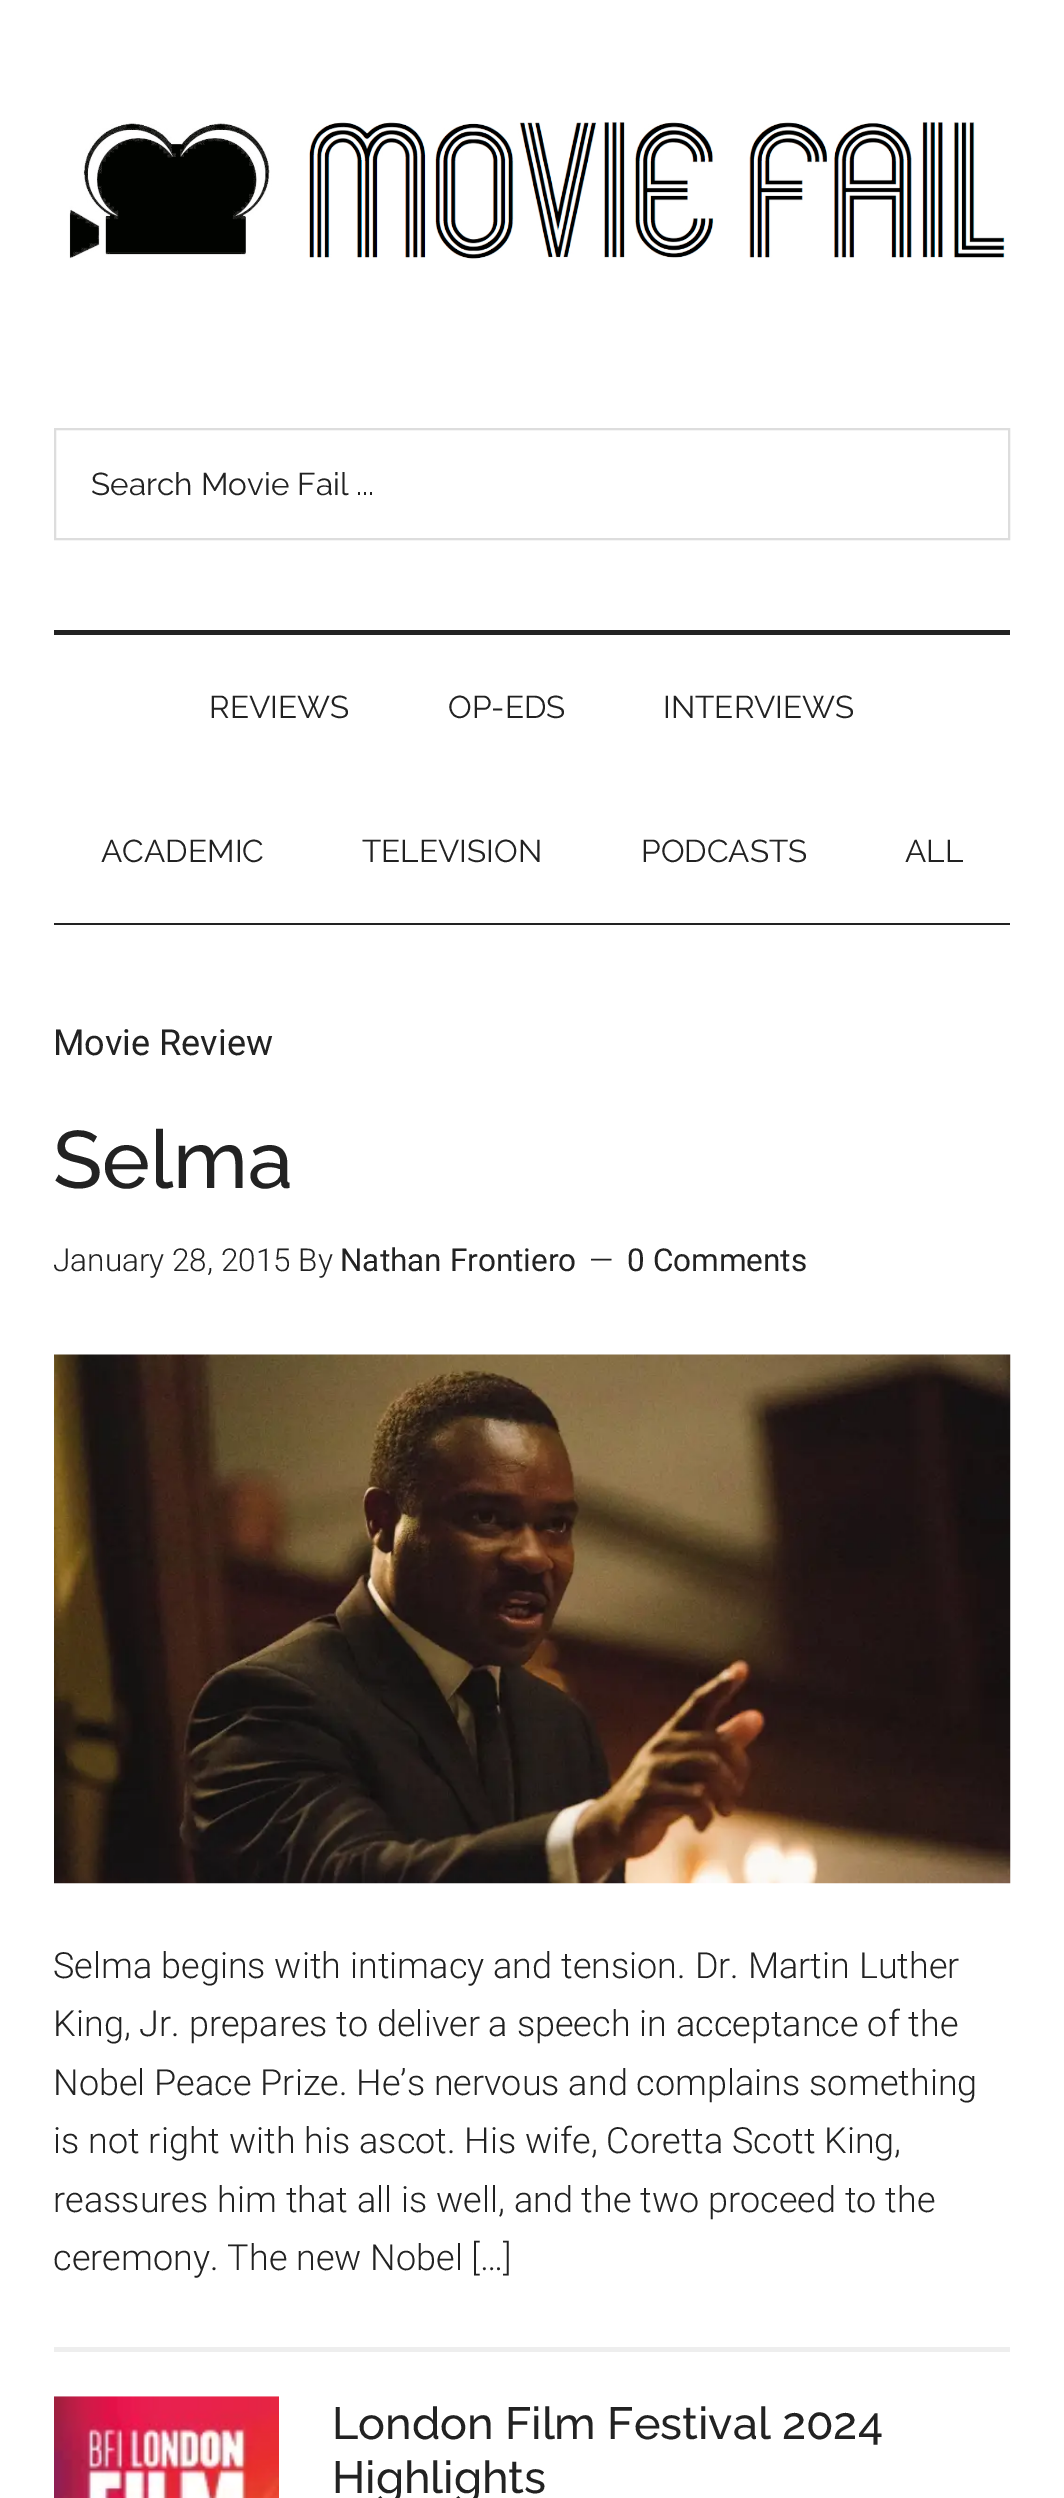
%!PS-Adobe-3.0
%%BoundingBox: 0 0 1064 2498
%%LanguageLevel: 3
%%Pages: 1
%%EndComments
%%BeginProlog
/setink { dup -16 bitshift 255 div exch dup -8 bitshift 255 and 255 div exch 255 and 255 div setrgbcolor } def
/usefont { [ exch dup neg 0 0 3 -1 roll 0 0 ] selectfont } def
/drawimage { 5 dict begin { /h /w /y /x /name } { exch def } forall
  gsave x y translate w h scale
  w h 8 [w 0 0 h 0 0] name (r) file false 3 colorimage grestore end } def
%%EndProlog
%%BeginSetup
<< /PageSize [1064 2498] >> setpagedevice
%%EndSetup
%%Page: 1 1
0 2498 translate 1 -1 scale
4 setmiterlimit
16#FFFFFF setink
0 0 1064 2498 rectfill
16#222222 setink
54 630 956 5 rectfill
(img1.raw) 69 122 936 137 drawimage
16#DDDDDD setink
2 setlinewidth
55 429 954 110 rectstroke
/Raleway-Regular 31.5 usefont
16#222222 setink
91 495 moveto (Search Movie Fail ...) show
54 923 956 2 rectfill
[
    [(REVIEWS) 209 718]
    [(OP-EDS) 448 718]
    [(INTERVIEWS) 663 718]
    [(ACADEMIC) 101 862]
    [(TELEVISION) 362 862]
    [(PODCASTS) 641 862]
    [(ALL) 905 862]
] { aload pop moveto show } forall
16#EEEEEE setink
54 2347 956 5 rectfill
/Roboto-Regular 36 usefont
16#222222 setink
53 1055 moveto (Movie Review) show
/Raleway-Medium 81 usefont
53 1188 moveto (Selma) show
/Roboto-Light 31.5 usefont
53 1271 moveto (January 28, 2015 By) show
/Roboto-Regular 31.5 usefont
340 1271 moveto (Nathan Frontiero) show
/Roboto-Light 31.5 usefont
589 1271 moveto (—) show
/Roboto-Regular 31.5 usefont
627 1271 moveto (0 Comments) show
(img2.raw) 54 1354 957 530 drawimage
/Roboto-Light 36 usefont
[
    [(Selma begins with intimacy and tension. Dr. Martin Luther) 53 1978]
    [(King, Jr. prepares to deliver a speech in acceptance of the) 53 2036]
    [(Nobel Peace Prize. He’s nervous and complains something) 53 2095]
    [(is not right with his ascot. His wife, Coretta Scott King,) 53 2153]
    [(reassures him that all is well, and the two proceed to the) 53 2212]
    [(ceremony. The new Nobel […]) 53 2270]
] { aload pop moveto show } forall
(img3.raw) 54 2396 225 102 drawimage
/Raleway-Medium 45 usefont
332 2439 moveto (London Film Festival 2024) show
332 2493 moveto (Highlights) show
showpage
%%EOF
